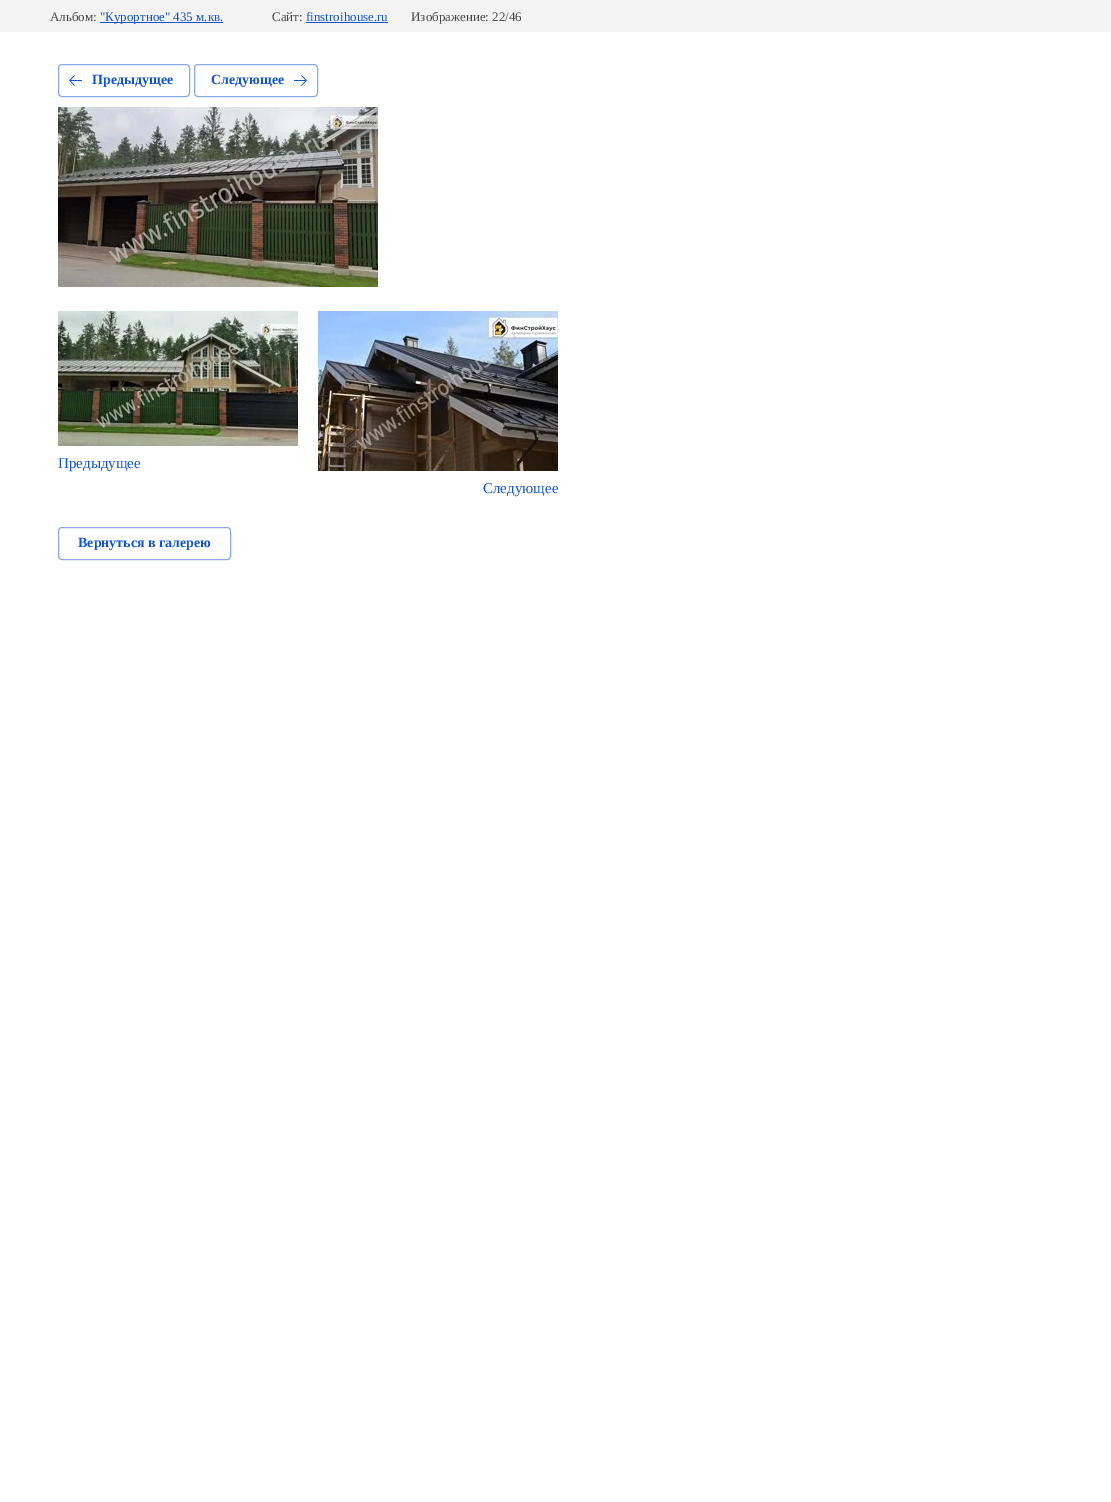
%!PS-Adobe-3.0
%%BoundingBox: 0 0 1111 1502
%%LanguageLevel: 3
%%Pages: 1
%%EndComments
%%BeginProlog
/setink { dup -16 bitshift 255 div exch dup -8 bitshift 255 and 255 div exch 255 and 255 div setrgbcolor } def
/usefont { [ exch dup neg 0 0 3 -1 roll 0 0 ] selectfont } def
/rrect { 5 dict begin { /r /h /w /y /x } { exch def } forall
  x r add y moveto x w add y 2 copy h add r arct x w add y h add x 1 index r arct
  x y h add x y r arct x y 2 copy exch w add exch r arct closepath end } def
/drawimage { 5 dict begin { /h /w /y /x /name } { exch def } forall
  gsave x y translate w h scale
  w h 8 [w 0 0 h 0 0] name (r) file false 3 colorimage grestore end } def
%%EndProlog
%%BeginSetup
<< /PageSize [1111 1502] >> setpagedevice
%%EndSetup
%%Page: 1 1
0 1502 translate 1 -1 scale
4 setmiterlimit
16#FFFFFF setink
0 0 1111 1502 rectfill
16#F3F3F3 setink
0 0 1111 32 rectfill
/LiberationSerif-Regular 13 usefont
16#484848 setink
50 21 moveto (Альбом:) show
16#1155CC setink
100 22 123 1 rectfill
100 21 moveto ("Курортное" 435 м.кв.) show
16#484848 setink
272 21 moveto (Сайт:) show
16#1155CC setink
306 21 moveto (finstroihouse.ru) show
306 22 82 1 rectfill
16#484848 setink
411 21 moveto (Изображение: 22/46) show
16#88AAE6 setink
58.5 64.5 131 32 3.5 rrect stroke
(img1.raw) 69 75 13 11 drawimage
/LiberationSerif-Bold 14 usefont
16#1155CC setink
92 84 moveto (Предыдущее) show
16#88AAE6 setink
194.5 64.5 123 32 3.5 rrect stroke
16#1155CC setink
211 84 moveto (Следующее) show
(img2.raw) 294 75 13 11 drawimage
(img3.raw) 58 107 320 180 drawimage
(img4.raw) 58 311 240 135 drawimage
/LiberationSerif-Regular 15 usefont
58 468 moveto (Предыдущее) show
(img5.raw) 318 311 240 160 drawimage
483 493 moveto (Следующее) show
16#88AAE6 setink
58.5 527.5 172 32 3.5 rrect stroke
/LiberationSerif-Bold 14 usefont
16#1155CC setink
78 547 moveto (Вернуться в галерею) show
showpage
%%EOF
